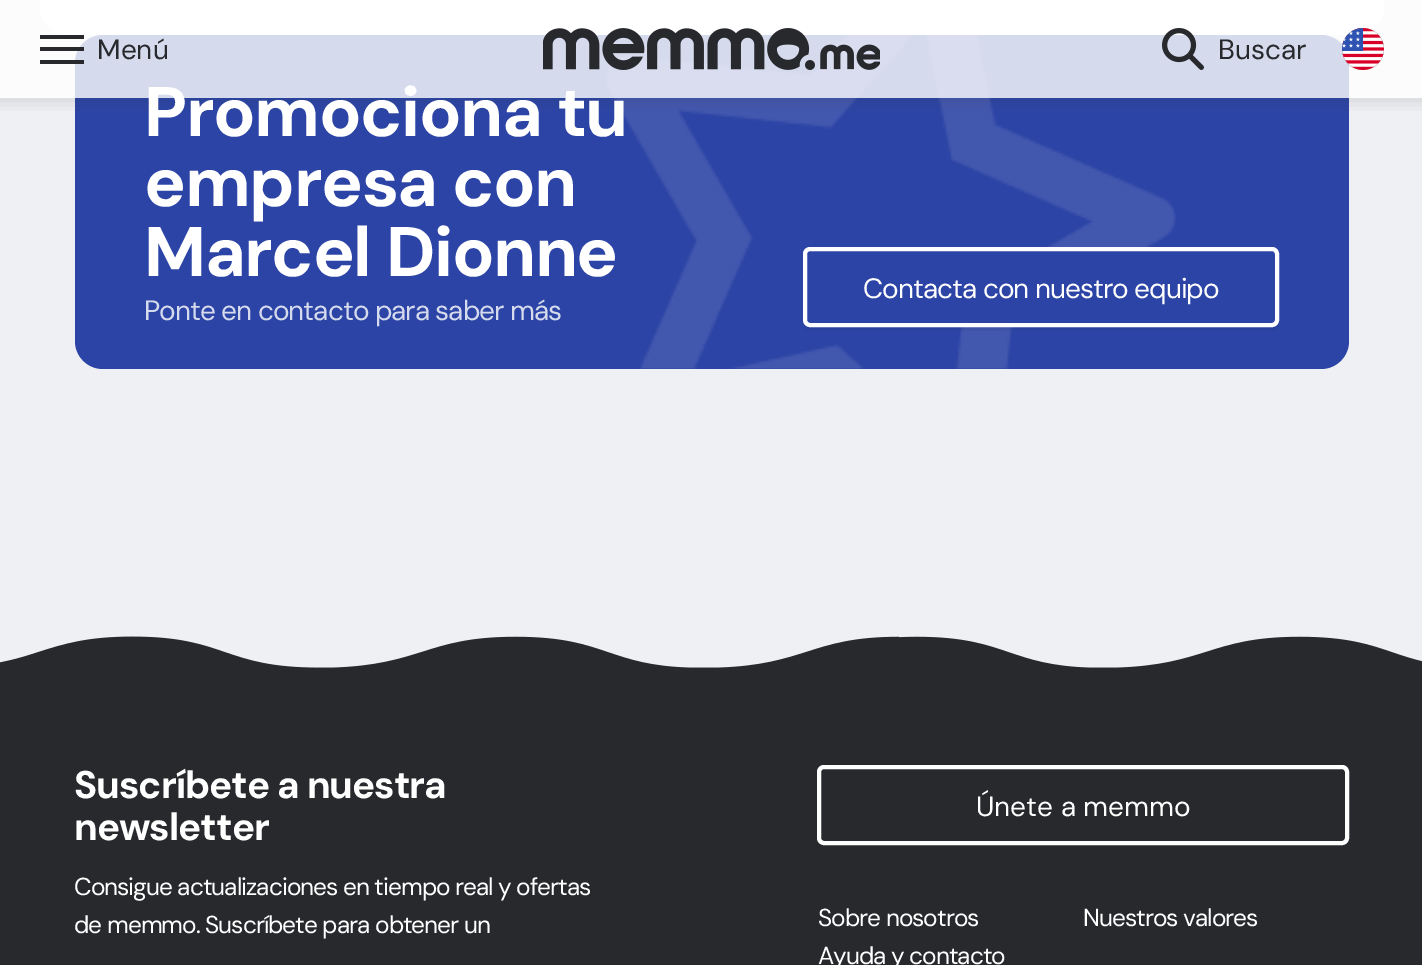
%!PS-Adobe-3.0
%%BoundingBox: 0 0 1422 965
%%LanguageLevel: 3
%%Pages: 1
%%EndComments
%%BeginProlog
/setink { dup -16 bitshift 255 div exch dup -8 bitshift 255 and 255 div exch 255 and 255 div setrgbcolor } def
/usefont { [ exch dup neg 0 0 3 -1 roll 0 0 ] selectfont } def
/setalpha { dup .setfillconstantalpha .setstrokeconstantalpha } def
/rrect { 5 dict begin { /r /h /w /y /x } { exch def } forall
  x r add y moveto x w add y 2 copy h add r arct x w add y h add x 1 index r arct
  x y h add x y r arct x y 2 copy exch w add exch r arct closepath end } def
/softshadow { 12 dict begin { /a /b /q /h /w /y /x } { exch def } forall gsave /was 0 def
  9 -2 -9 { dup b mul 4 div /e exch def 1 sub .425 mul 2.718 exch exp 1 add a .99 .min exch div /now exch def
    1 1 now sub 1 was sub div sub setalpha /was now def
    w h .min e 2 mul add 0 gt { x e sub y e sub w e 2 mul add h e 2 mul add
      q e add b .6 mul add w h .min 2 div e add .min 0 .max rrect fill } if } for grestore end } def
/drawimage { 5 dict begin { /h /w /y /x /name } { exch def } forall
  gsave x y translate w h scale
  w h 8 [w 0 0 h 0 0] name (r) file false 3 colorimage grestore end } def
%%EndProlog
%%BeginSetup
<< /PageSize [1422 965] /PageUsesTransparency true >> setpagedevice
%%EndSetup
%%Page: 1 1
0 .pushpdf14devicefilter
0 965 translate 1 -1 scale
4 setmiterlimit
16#EFF0F4 setink
0 0 1422 965 rectfill
16#FFFFFF setink
40 -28 1344 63 28 rrect fill
16#2C44A5 setink
75 35 1274 334 28 rrect fill
(img4.raw) 604 35 572 334 drawimage
gsave
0 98 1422 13 rectclip
16#333333 setink
-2 -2 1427 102 0 9 0.18 softshadow
grestore
/DMSans-Bold 70 usefont
16#FFFFFF setink
144 136 moveto -1.4 0 (Promociona tu) ashow
0.8 setalpha
[
    [0 0 1422 98 16#FFFFFF]
] { aload pop setink rectfill } forall
1 setalpha
[
    [40 35 44 4 16#27292D]
    [40 47 44 4 16#27292D]
    [40 60 44 4 16#27292D]
] { aload pop setink rectfill } forall
/DMSans-Regular 28 usefont
97 59 moveto (Menú) show
(img1.raw) 543 28 337 42 drawimage
(img2.raw) 1162 28 42 42 drawimage
1218 59 moveto (Buscar) show
(img3.raw) 1342 28 42 42 drawimage
/DMSans-Bold 70 usefont
16#FFFFFF setink
144 206 moveto -1.4 0 (empresa con) ashow
144 276 moveto -1.4 0 (Marcel Dionne) ashow
/DMSans-Regular 28 usefont
16#D5DAED setink
144 320 moveto -1 0 (Ponte en contacto para saber más) ashow
0.04 setalpha
16#000000 setink
803 255 moveto 803 324 lineto 803 328 806 331 810 331 curveto 1272 331 lineto 1276 331 1279 328 1279 324 curveto 1279 322 lineto 1278 325 1275 327 1272 327 curveto 810 327 lineto 806 327 803 324 803 320 curveto closepath fill
1 setalpha
16#2C44A5 setink
805 249 472 76 5 rrect gsave fill grestore
16#FFFFFF setink
4 setlinewidth
stroke
863 298 moveto -1 0 (Contacta con nuestro equipo) ashow
16#27292D setink
0 636 1422 329 rectfill
(img5.raw) 0 625 1422 43 drawimage
/DMSans-Bold 38.5 usefont
16#FFFFFF setink
74 798 moveto -1 0 (Suscríbete a nuestra) ashow
74 840 moveto -1 0 (newsletter) ashow
/DMSans-Regular 24.5 usefont
74 895 moveto -1 0 (Consigue actualizaciones en tiempo real y ofertas) ashow
74 933 moveto -1 0 (de memmo. Suscríbete para obtener un) ashow
819 767 528 76 5 rrect stroke
/DMSans-Regular 28 usefont
976 816 moveto (Únete a memmo) show
/DMSans-Regular 24.5 usefont
818 926 moveto -1 0 (Sobre nosotros) ashow
1083 926 moveto -1 0 (Nuestros valores) ashow
818 964 moveto -1 0 (Ayuda y contacto) ashow
.poppdf14devicefilter showpage
%%EOF
